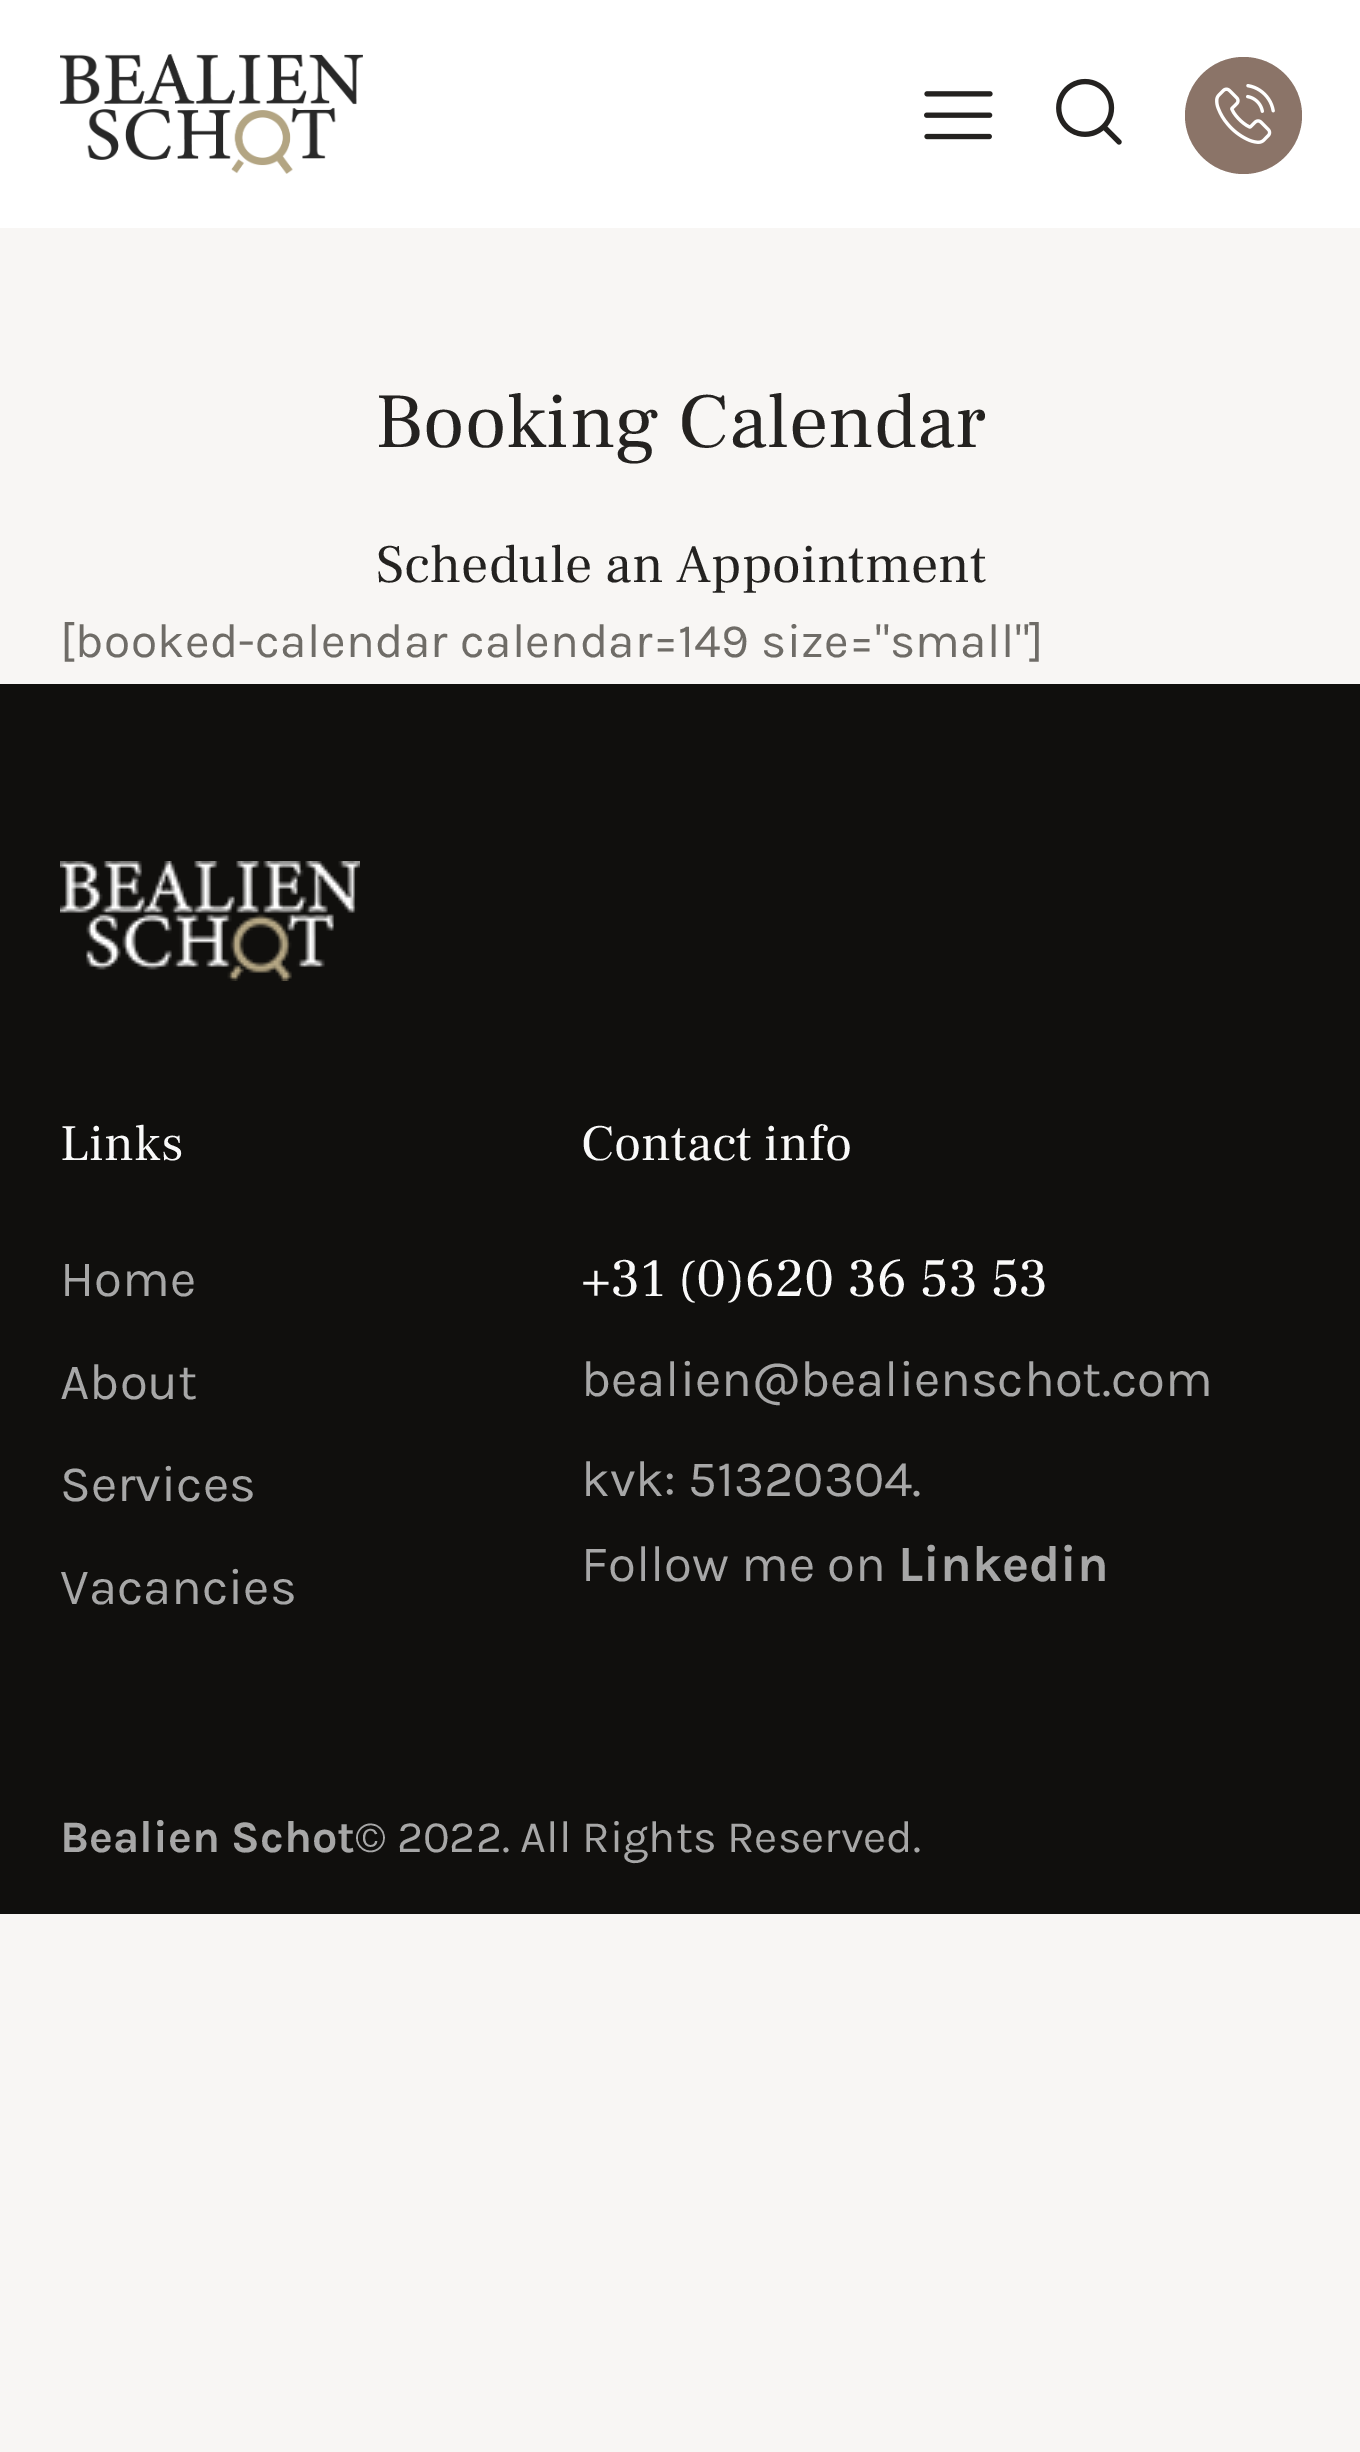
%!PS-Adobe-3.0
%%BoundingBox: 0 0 1360 2452
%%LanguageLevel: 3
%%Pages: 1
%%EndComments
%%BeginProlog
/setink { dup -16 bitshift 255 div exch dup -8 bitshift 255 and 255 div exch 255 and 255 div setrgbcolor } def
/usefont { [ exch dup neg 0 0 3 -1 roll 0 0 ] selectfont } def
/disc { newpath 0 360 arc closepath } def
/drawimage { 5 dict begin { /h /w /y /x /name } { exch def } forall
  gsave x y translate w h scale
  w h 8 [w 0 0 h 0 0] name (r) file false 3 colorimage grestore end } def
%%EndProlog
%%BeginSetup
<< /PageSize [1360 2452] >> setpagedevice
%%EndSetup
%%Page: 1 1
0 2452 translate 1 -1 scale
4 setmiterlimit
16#F8F6F4 setink
0 0 1360 2452 rectfill
16#FFFFFF setink
0 0 1360 228 rectfill
(img1.raw) 60 54 303 120 drawimage
(img2.raw) 924 91 69 49 drawimage
(img3.raw) 1056 78 66 67 drawimage
16#8B7468 setink
1243.5 115.5 58.5 disc fill
(img4.raw) 1215 84 60 60 drawimage
/FrankRuhlLibre-Regular 78 usefont
16#242220 setink
375 447 moveto (Booking Calendar) show
/FrankRuhlLibre-Regular 54 usefont
376 582 moveto (Schedule an Appointment) show
/Karla-Regular 48 usefont
16#6F6C67 setink
60 657 moveto 0.3 0 ([booked-calendar calendar=149 size="small"]) ashow
16#100F0D setink
0 684 1360 1230 rectfill
(img5.raw) 60 861 300 120 drawimage
/FrankRuhlLibre-Regular 51 usefont
16#F9F9F9 setink
60 1160 moveto (Links) show
/Karla-Regular 51 usefont
16#A7A7A7 setink
[
    [(Home) 60 1296]
    [(About) 60 1399]
    [(Services) 60 1501]
    [(Vacancies) 60 1604]
] { aload pop moveto show } forall
/FrankRuhlLibre-Regular 51 usefont
16#F9F9F9 setink
581 1160 moveto (Contact info) show
/FrankRuhlLibre-Regular 54 usefont
581 1296 moveto (+31 \(0\)620 36 53 53) show
/Karla-Regular 51 usefont
16#A7A7A7 setink
[
    [(bealien@bealienschot.com) 581 1396]
    [(kvk: 51320304.) 581 1496]
    [(Follow me on) 581 1581]
] { aload pop moveto show } forall
/Karla-Bold 51 usefont
898 1581 moveto (Linkedin) show
/Karla-Bold 45 usefont
60 1852 moveto (Bealien Schot) show
/Karla-Regular 45 usefont
355 1852 moveto (© 2022. All Rights Reserved.) show
showpage
%%EOF
